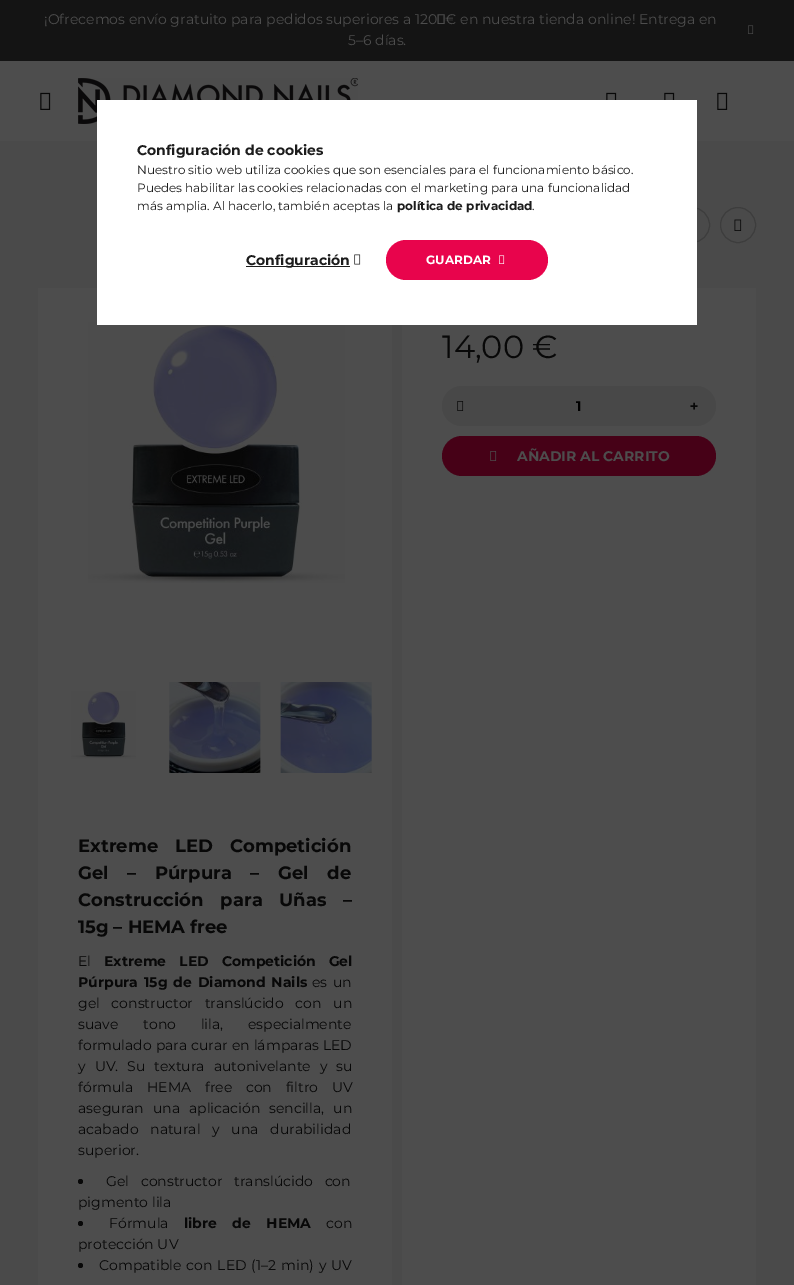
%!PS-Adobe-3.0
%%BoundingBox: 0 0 794 1285
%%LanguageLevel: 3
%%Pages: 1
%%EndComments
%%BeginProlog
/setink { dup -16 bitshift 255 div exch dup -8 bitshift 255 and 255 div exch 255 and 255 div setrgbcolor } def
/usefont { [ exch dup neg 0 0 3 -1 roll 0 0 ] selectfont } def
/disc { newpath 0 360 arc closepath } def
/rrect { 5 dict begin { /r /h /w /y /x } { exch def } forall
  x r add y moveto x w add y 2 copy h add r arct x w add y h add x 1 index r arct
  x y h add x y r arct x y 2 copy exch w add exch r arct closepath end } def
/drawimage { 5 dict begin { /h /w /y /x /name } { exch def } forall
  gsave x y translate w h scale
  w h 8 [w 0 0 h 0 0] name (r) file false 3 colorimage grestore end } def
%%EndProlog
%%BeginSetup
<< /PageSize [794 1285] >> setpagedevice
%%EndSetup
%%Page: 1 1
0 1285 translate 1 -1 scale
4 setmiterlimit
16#4A4A4A setink
0 0 794 1285 rectfill
16#141414 setink
0 0 794 61 rectfill
/Montserrat-Regular 14 usefont
16#4D4D4D setink
44 24 moveto (¡Ofrecemos envío gratuito para pedidos superiores a 120 € en nuestra tienda online! Entrega en) show
348 45 moveto (5–6 días.) show
(img1.raw) 748 25 6 9 drawimage
0 61 794 80 rectfill
(img2.raw) 40 92 11 18 drawimage
(img3.raw) 78 78 280 46 drawimage
(img4.raw) 606 92 11 8 drawimage
(img4.raw) 664 92 11 8 drawimage
(img2.raw) 717 92 11 18 drawimage
16#3D3D3D setink
692 225 17.5 disc stroke
738 225 17.5 disc stroke
(img5.raw) 734 219 8 12 drawimage
16#4D4D4D setink
402 288 354 997 rectfill
/Montserrat-Regular 32 usefont
16#080808 setink
442 358 moveto (14,00 €) show
16#484848 setink
442 386 274 40 20 rrect fill
(img6.raw) 457 401 7 10 drawimage
/Montserrat-Bold 14 usefont
16#000000 setink
576 411 moveto (1) show
/NotoSans-Black 14 usefont
16#080808 setink
690 411 moveto (+) show
16#460117 setink
442 436 274 40 20 rrect fill
(img7.raw) 490 451 7 10 drawimage
/Montserrat-Bold 14 usefont
16#4D4D4D setink
517 461 moveto (AÑADIR AL CARRITO) show
38 288 354 997 rectfill
(img8.raw) 88 322 257 261 drawimage
(img9.raw) 71 691 65 68 drawimage
(img10.raw) 169 682 92 91 drawimage
(img11.raw) 280 682 92 91 drawimage
/Montserrat-Bold 18 usefont
16#080808 setink
78 852 moveto 12 0 32 (Extreme LED Competición) widthshow
78 879 moveto 13.5 0 32 (Gel – Púrpura – Gel de) widthshow
78 906 moveto 11.5 0 32 (Construcción para Uñas –) widthshow
78 933 moveto (15g – HEMA free) show
/Montserrat-Regular 14 usefont
78 966 moveto (El) show
/Montserrat-Bold 14 usefont
104 966 moveto 9 0 32 (Extreme LED Competición Gel) widthshow
78 987 moveto 2 0 32 (Púrpura 15g de Diamond Nails) widthshow
/Montserrat-Regular 14 usefont
312 987 moveto 2 0 32 (es un) widthshow
78 1008 moveto 8 0 32 (gel constructor translúcido con un) widthshow
78 1029 moveto 21 0 32 (suave tono lila, especialmente) widthshow
78 1050 moveto 0.25 0 32 (formulado para curar en lámparas LED) widthshow
78 1071 moveto 5.25 0 32 (y UV. Su textura autonivelante y su) widthshow
78 1092 moveto 10 0 32 (fórmula HEMA free con filtro UV) widthshow
78 1113 moveto 5.25 0 32 (aseguran una aplicación sencilla, un) widthshow
78 1134 moveto 8 0 32 (acabado natural y una durabilidad) widthshow
78 1155 moveto (superior.) show
80.5 1181.5 2.5 disc fill
106 1186 moveto 8 0 32 (Gel constructor translúcido con) widthshow
78 1207 moveto (pigmento lila) show
80.5 1223.5 2.5 disc fill
109 1228 moveto (Fórmula) show
/Montserrat-Bold 14 usefont
184 1228 moveto 11.5 0 32 (libre de HEMA) widthshow
/Montserrat-Regular 14 usefont
326 1228 moveto (con) show
78 1249 moveto (protección UV) show
80.5 1265.5 2.5 disc fill
99 1270 moveto 1.25 0 32 (Compatible con LED \(1–2 min\) y UV) widthshow
16#FFFFFF setink
97 100 600 225 rectfill
/Montserrat-Bold 14 usefont
16#1C1C1C setink
137 155 moveto (Configuración de cookies) show
/Montserrat-Regular 12 usefont
[
    [(Nuestro sitio web utiliza cookies que son esenciales para el funcionamiento básico.) 137 174]
    [(Puedes habilitar las cookies relacionadas con el marketing para una funcionalidad) 137 192]
    [(más amplia. Al hacerlo, también aceptas la) 137 210]
] { aload pop moveto show } forall
/Montserrat-Bold 12 usefont
397 210 moveto (política de privacidad) show
/Montserrat-Regular 12 usefont
532 210 moveto (.) show
246 266 104 1 rectfill
/Montserrat-Bold 14 usefont
246 265 moveto (Configuración) show
(img12.raw) 354 254 7 11 drawimage
16#E8044C setink
386 240 162 40 20 rrect fill
/Montserrat-Bold 12 usefont
16#FFFFFF setink
426 264 moveto (GUARDAR) show
(img13.raw) 499 255 6 9 drawimage
showpage
%%EOF
